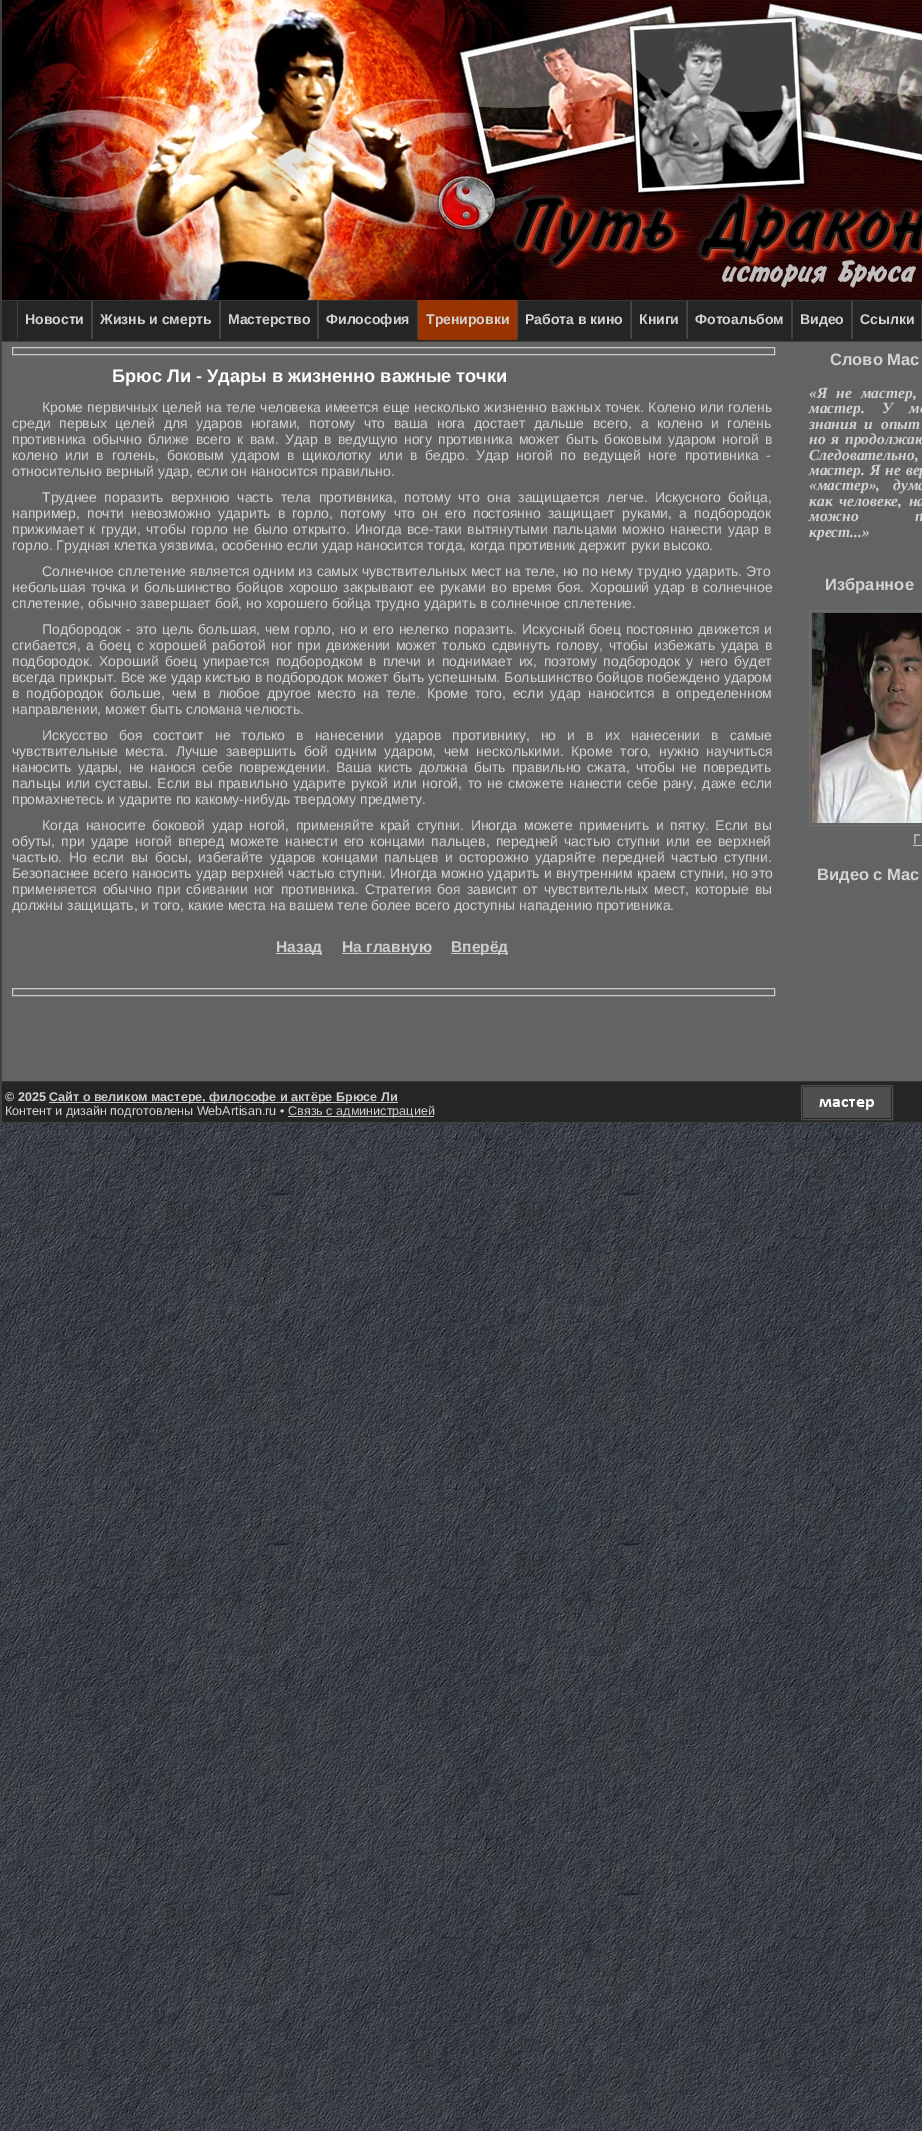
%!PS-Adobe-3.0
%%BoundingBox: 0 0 922 2131
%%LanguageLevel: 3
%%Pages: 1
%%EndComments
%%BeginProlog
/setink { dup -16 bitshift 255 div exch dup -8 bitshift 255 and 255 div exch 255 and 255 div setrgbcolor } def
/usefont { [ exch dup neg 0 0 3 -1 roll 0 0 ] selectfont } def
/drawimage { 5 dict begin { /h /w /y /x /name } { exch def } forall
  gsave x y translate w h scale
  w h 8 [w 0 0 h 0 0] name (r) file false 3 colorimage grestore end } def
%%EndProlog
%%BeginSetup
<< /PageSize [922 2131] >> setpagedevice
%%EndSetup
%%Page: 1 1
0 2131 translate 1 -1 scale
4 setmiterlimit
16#FFFFFF setink
0 0 922 2131 rectfill
(img1.raw) 0 1123 922 1008 drawimage
16#636363 setink
2 342 920 739 rectfill
16#404040 setink
0 0 2 1123 rectfill
(img2.raw) 2 0 920 300 drawimage
[
    [2 301 920 40 16#242524]
    [2 300 920 1 16#353535]
    [2 341 920 1 16#404040]
    [91 301 2 38 16#454545]
    [17 301 1 38 16#454545]
] { aload pop setink rectfill } forall
/LiberationSans-Bold 14 usefont
16#D3D3D3 setink
25 324 moveto (Новости) show
16#454545 setink
219 301 2 38 rectfill
16#D3D3D3 setink
100 324 moveto (Жизнь и смерть) show
16#454545 setink
317 301 2 38 rectfill
16#D3D3D3 setink
228 324 moveto (Мастерство) show
16#454545 setink
417 301 1 38 rectfill
16#D3D3D3 setink
326 324 moveto (Философия) show
16#993300 setink
418 300 99 40 rectfill
16#D3D3D3 setink
426 324 moveto (Тренировки) show
16#454545 setink
630 301 2 38 rectfill
517 301 1 38 rectfill
16#D3D3D3 setink
525 324 moveto (Работа в кино) show
16#454545 setink
686 301 2 38 rectfill
16#D3D3D3 setink
639 324 moveto (Книги) show
16#454545 setink
791 301 2 38 rectfill
16#D3D3D3 setink
695 324 moveto (Фотоальбом) show
16#454545 setink
851 301 2 38 rectfill
16#D3D3D3 setink
800 324 moveto (Видео) show
16#454545 setink
921 301 1 38 rectfill
16#D3D3D3 setink
860 324 moveto (Ссылки) show
16#CCCCCC setink
12.5 347.5 762 7 rectstroke
/LiberationSans-Bold 18.2 usefont
16#FFFFFF setink
112 382 moveto (Брюс Ли - Удары в жизненно важные точки) show
/LiberationSans-Regular 14 usefont
16#D3D3D3 setink
42 412 moveto 0.4 0 32 (Кроме первичных целей на теле человека имеется еще несколько жизненно важных точек. Колено или голень) widthshow
12 428 moveto 4.75 0 32 (среди первых целей для) widthshow
196 428 moveto 4.75 0 32 (ударов ногами, потому что ваша нога достает дальше всего, а колено и голень) widthshow
12 444 moveto 2.6 0 32 (противника обычно ближе всего к вам. Удар в ведущую ногу противника может быть боковым ударом ногой в) widthshow
12 460 moveto 3.75 0 32 (колено или в голень, боковым ударом в щиколотку или в бедро. Удар ногой по ведущей ноге противника -) widthshow
12 476 moveto (относительно верный удар, если он наносится правильно.) show
42 502 moveto 3.75 0 32 (Труднее поразить верхнюю часть тела противника, потому что она защищается легче. Искусного бойца,) widthshow
12 518 moveto 3.4 0 32 (например, почти невозможно ударить в горло, потому что он его постоянно защищает руками, а подбородок) widthshow
12 534 moveto 1.5 0 32 (прижимает к груди, чтобы горло не было открыто. Иногда все-таки вытянутыми пальцами можно нанести удар в) widthshow
12 550 moveto (горло. Грудная клетка уязвима, особенно если удар наносится тогда, когда противник держит руки высоко.) show
42 576 moveto (Солнечное сплетение является одним из самых чувствительных мест на теле, но по нему трудно ударить. Это) show
12 592 moveto 1.4 0 32 (небольшая точка и большинство бойцов хорошо закрывают ее руками во время боя. Хороший удар в солнечное) widthshow
12 608 moveto (сплетение, обычно завершает бой, но хорошего бойца трудно ударить в солнечное сплетение.) show
42 634 moveto 1 0 32 (Подбородок - это цель большая, чем горло, но и его нелегко поразить. Искусный боец постоянно движется и) widthshow
12 650 moveto 1.75 0 32 (сгибается, а боец с хорошей работой ног при движении может только сдвинуть голову, чтобы избежать удара в) widthshow
12 666 moveto 2.4 0 32 (подбородок. Хороший боец упирается подбородком в плечи и поднимает их, поэтому подбородок у него будет) widthshow
12 682 moveto 0.25 0 32 (всегда прикрыт. Все же удар кистью в подбородок может быть успешным. Большинство бойцов побеждено ударом) widthshow
12 698 moveto 3.1 0 32 (в подбородок больше, чем в любое другое место на теле. Кроме того, если удар наносится в определенном) widthshow
12 714 moveto (направлении, может быть сломана челюсть.) show
42 740 moveto 7.25 0 32 (Искусство боя состоит не только в нанесении ударов противнику, но и в их нанесении в самые) widthshow
12 756 moveto 3.9 0 32 (чувствительные места. Лучше завершить бой одним ударом, чем несколькими. Кроме того, нужно научиться) widthshow
12 772 moveto 2.25 0 32 (наносить удары, не нанося себе повреждении. Ваша кисть должна быть правильно сжата, чтобы не повредить) widthshow
12 788 moveto 1.5 0 32 (пальцы или суставы. Если вы правильно ударите рукой или ногой, то не сможете нанести себе рану, даже если) widthshow
12 804 moveto (промахнетесь и ударите по какому-нибудь твердому предмету.) show
42 830 moveto 2.75 0 32 (Когда наносите боковой удар ногой, применяйте край ступни. Иногда можете применить и пятку. Если вы) widthshow
12 846 moveto 2.25 0 32 (обуты, при ударе ногой вперед можете нанести его концами пальцев, передней частью ступни или ее верхней) widthshow
12 862 moveto 2.75 0 32 (частью. Но если вы босы, избегайте ударов концами пальцев и осторожно ударяйте передней частью ступни.) widthshow
12 878 moveto 0.25 0 32 (Безопаснее всего наносить удар верхней частью ступни. Иногда можно ударить и внутренним краем ступни, но это) widthshow
12 894 moveto 2.1 0 32 (применяется обычно при сбивании ног противника. Стратегия боя зависит от чувствительных мест, которые вы) widthshow
12 910 moveto (должны защищать, и того, какие места на вашем теле более всего доступны нападению противника.) show
16#CDCDCD setink
276 953 46 1 rectfill
/LiberationSans-Bold 15.5 usefont
276 952 moveto (Назад) show
342 953 89 1 rectfill
342 952 moveto (На главную) show
451 953 57 1 rectfill
451 952 moveto (Вперёд) show
16#CCCCCC setink
12.5 988.5 762 7 rectstroke
/LiberationSans-Bold 16.5 usefont
16#D3D3D3 setink
830 365 moveto (Слово Мас) show
/LiberationSerif-BoldItalic 15.5 usefont
809 398 moveto 5 0 32 («Я не мастер,) widthshow
809 413 moveto 13 0 32 (мастер. У ме) widthshow
809 429 moveto 4 0 32 (знания и опыт) widthshow
809 444 moveto 2 0 32 (но я продолжаю) widthshow
809 460 moveto 3.4 0 32 (Следовательно,) widthshow
809 475 moveto 1 0 32 (мастер. Я не вер) widthshow
809 490 moveto 9 0 32 («мастер», дума) widthshow
809 506 moveto 2.75 0 32 (как человеке, на) widthshow
809 521 moveto 53 0 32 (можно п) widthshow
809 537 moveto (крест...») show
/LiberationSans-Bold 16.5 usefont
825 590 moveto (Избранное) show
16#707070 setink
809.5 610.5 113 215 rectstroke
(img3.raw) 812 613 110 210 drawimage
/LiberationSans-Regular 14 usefont
16#CDCDCD setink
913 844 moveto (Г) show
913 845 9 1 rectfill
/LiberationSans-Bold 16.5 usefont
16#D3D3D3 setink
817 880 moveto (Видео с Мас) show
[
    [2 1082 920 40 16#242524]
    [2 1081 920 1 16#353535]
    [2 1122 920 1 16#404040]
] { aload pop setink rectfill } forall
/LiberationSans-Bold 12.6 usefont
16#D3D3D3 setink
5 1101 moveto (© 2025) show
16#CDCDCD setink
49 1102 349 1 rectfill
49 1101 moveto (Сайт о великом мастере, философе и актёре Брюсе Ли) show
/LiberationSans-Regular 12.6 usefont
16#D3D3D3 setink
5 1115 moveto (Контент и дизайн подготовлены WebArtisan.ru •) show
16#CDCDCD setink
288 1116 146 1 rectfill
288 1115 moveto (Связь с администрацией) show
16#505050 setink
801.5 1085.5 91 34 rectstroke
(img4.raw) 803 1087 88 31 drawimage
showpage
%%EOF
